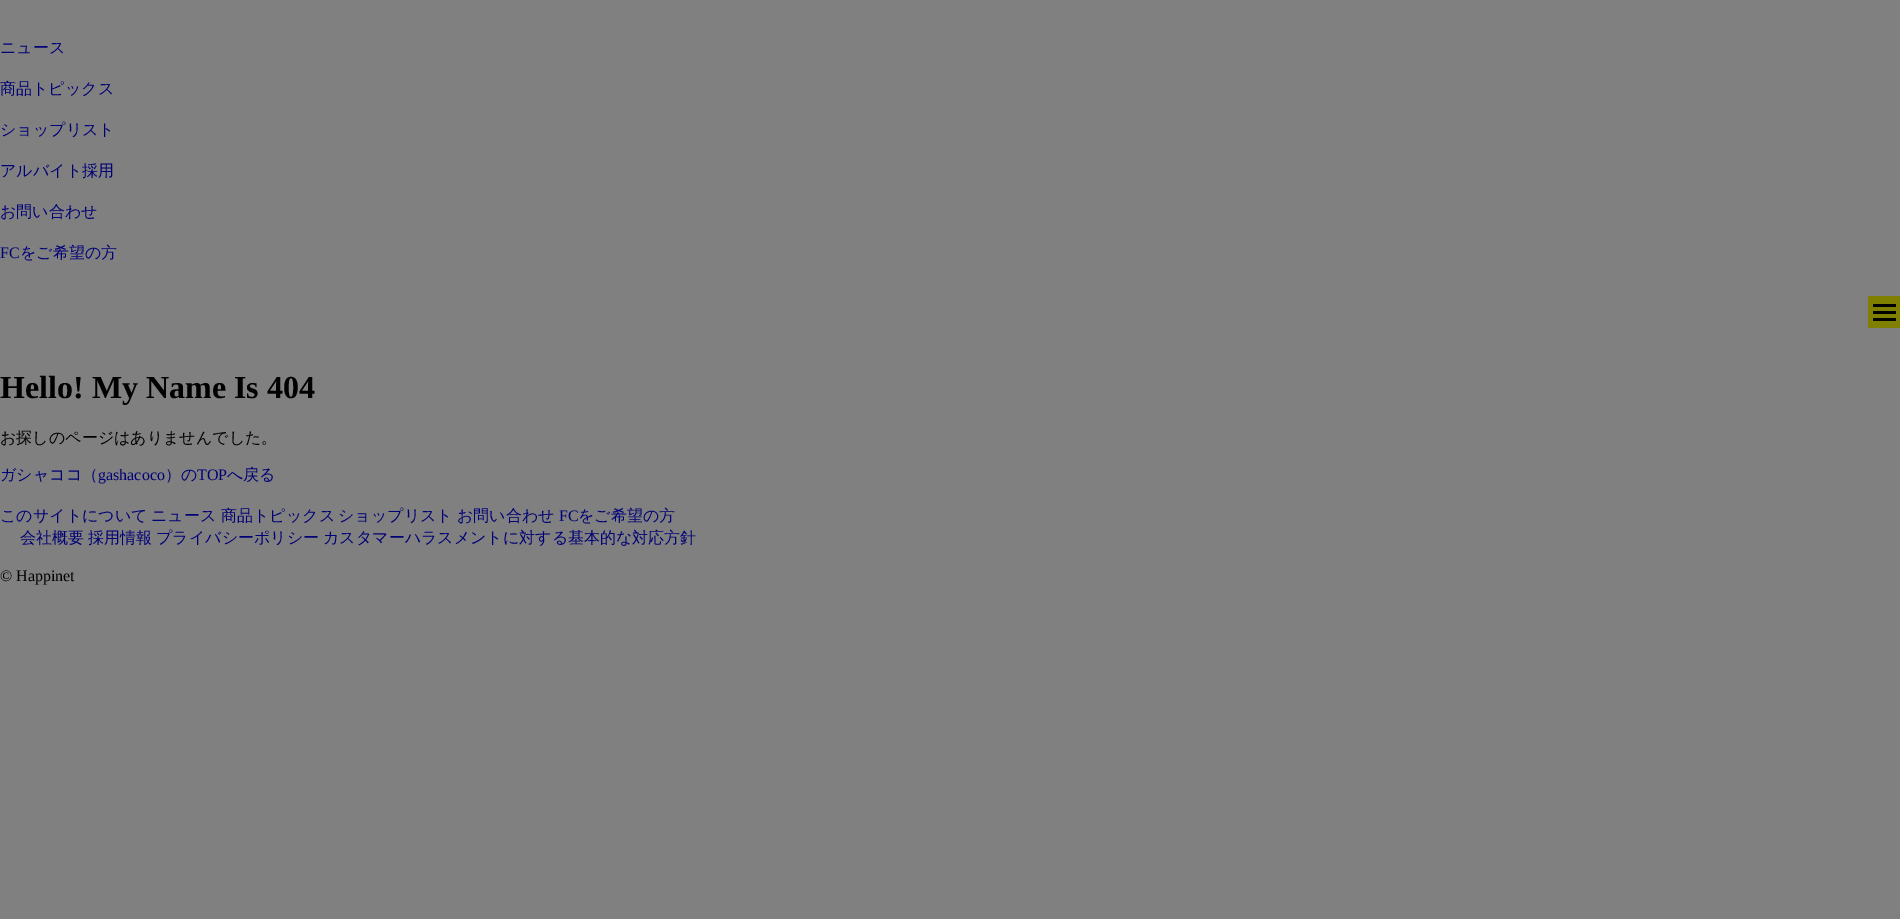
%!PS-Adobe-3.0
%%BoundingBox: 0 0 1900 919
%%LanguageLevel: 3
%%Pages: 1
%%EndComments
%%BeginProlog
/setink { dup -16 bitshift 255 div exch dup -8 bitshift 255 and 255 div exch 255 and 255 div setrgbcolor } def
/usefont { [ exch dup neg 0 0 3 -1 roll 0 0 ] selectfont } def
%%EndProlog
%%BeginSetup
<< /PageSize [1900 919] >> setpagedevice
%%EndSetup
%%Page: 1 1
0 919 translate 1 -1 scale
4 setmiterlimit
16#808080 setink
0 0 1900 919 rectfill
/WenQuanYiZenHei-Medium 16 usefont
16#000077 setink
[
    [(ニュース) 0 53]
    [(商品トピックス) 0 94]
    [(ショップリスト) 0 135]
    [(アルバイト採用) 0 176]
    [(お問い合わせ) 0 217]
] { aload pop moveto show } forall
/LiberationSerif-Regular 16 usefont
0 258 moveto (FC) show
/WenQuanYiZenHei-Medium 16 usefont
20 258 moveto (をご希望の方) show
[
    [1868 296 32 32 16#808000]
    [1873 304 23 3 16#000000]
    [1873 311 23 3 16#000000]
    [1873 318 23 3 16#000000]
] { aload pop setink rectfill } forall
/LiberationSerif-Bold 32 usefont
0 398 moveto (Hello! My Name Is 404) show
/WenQuanYiZenHei-Medium 16 usefont
0 443 moveto (お探しのページはありませんでした。) show
16#000077 setink
0 480 moveto (ガシャココ（) show
/LiberationSerif-Regular 16 usefont
98 480 moveto (gashacoco) show
/WenQuanYiZenHei-Medium 16 usefont
165 480 moveto (）の) show
/LiberationSerif-Regular 16 usefont
197 480 moveto (TOP) show
/WenQuanYiZenHei-Medium 16 usefont
[
    [(へ戻る) 227 480]
    [(このサイトについて) 0 521]
    [(ニュース) 151 521]
    [(商品トピックス) 221 521]
    [(ショップリスト) 338 521]
    [(お問い合わせ) 457 521]
] { aload pop moveto show } forall
/LiberationSerif-Regular 16 usefont
559 521 moveto (FC) show
/WenQuanYiZenHei-Medium 16 usefont
[
    [(をご希望の方) 578 521]
    [(会社概要) 20 543]
    [(採用情報) 88 543]
    [(プライバシーポリシー) 156 543]
    [(カスタマーハラスメントに対する基本的な対応方針) 323 543]
] { aload pop moveto show } forall
/LiberationSerif-Regular 16 usefont
16#000000 setink
0 581 moveto (© Happinet) show
showpage
%%EOF
